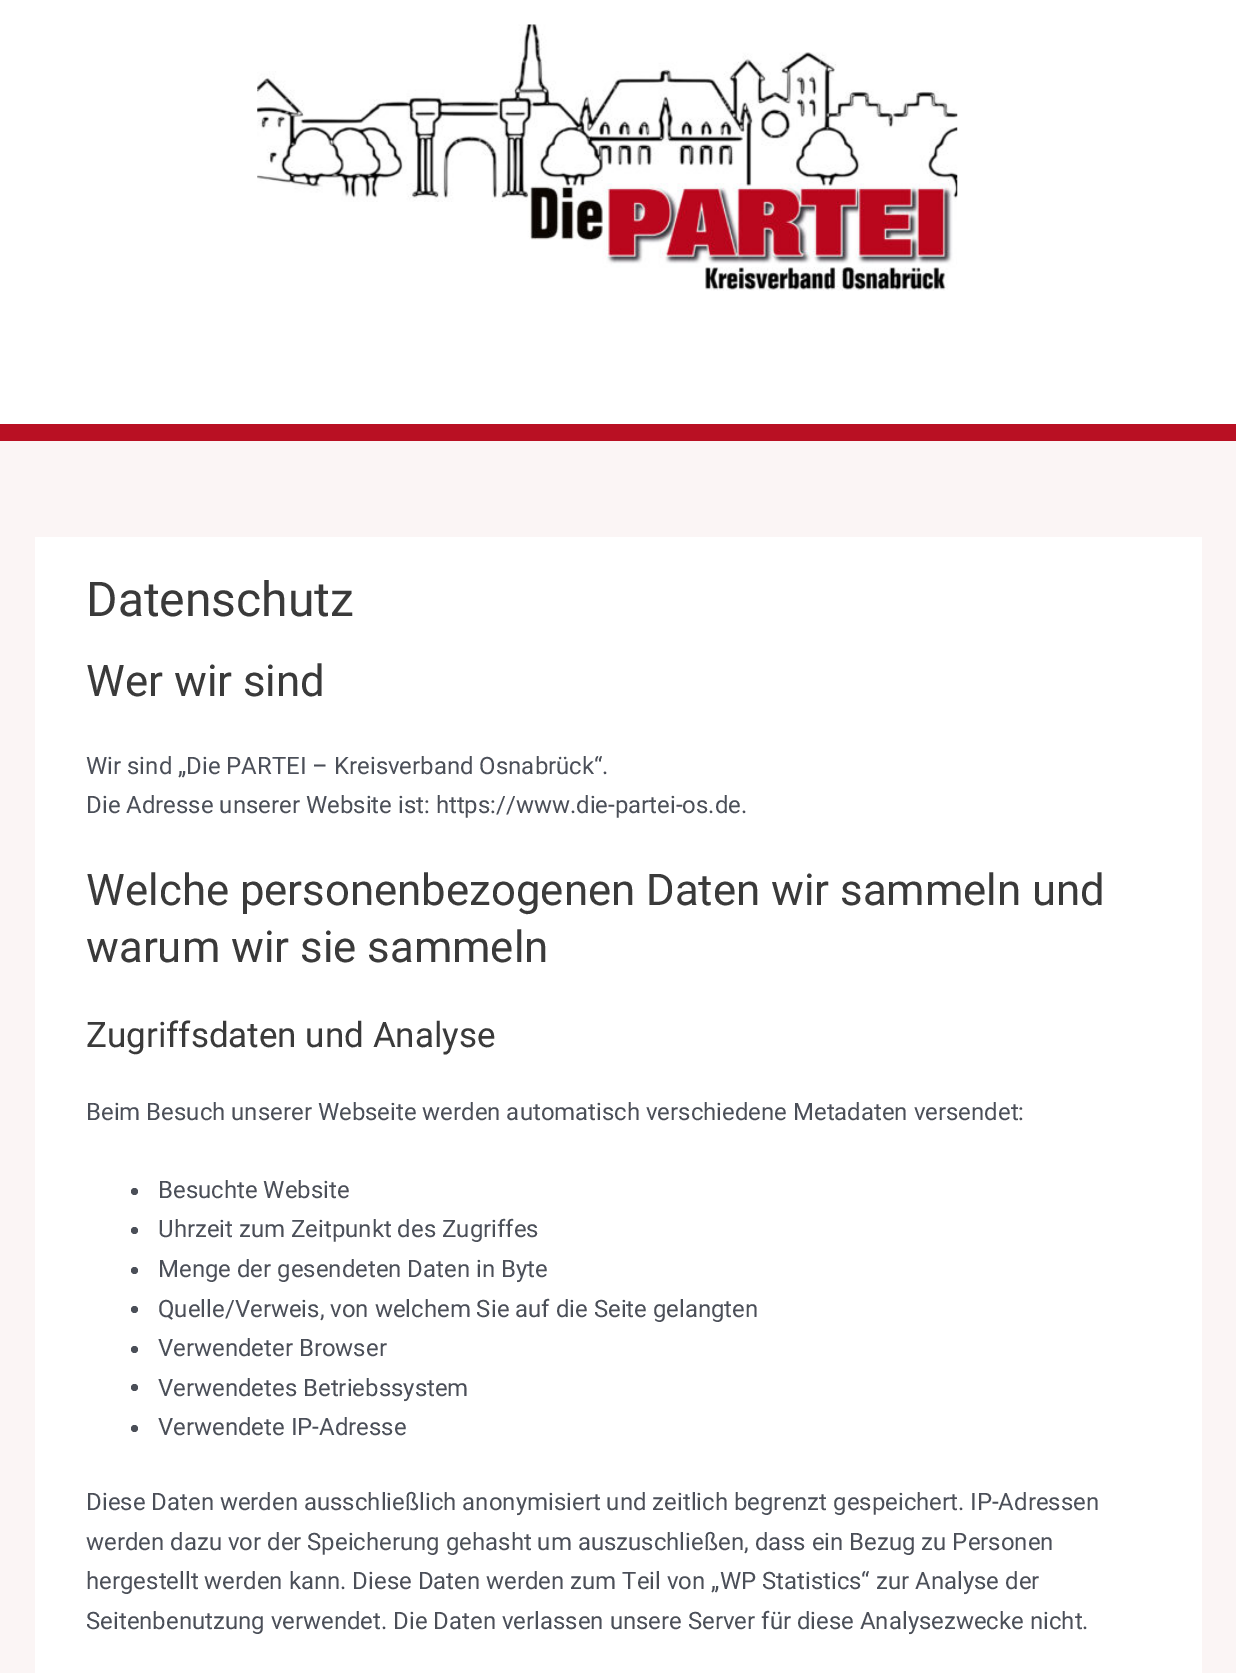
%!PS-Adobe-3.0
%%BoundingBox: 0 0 1236 1673
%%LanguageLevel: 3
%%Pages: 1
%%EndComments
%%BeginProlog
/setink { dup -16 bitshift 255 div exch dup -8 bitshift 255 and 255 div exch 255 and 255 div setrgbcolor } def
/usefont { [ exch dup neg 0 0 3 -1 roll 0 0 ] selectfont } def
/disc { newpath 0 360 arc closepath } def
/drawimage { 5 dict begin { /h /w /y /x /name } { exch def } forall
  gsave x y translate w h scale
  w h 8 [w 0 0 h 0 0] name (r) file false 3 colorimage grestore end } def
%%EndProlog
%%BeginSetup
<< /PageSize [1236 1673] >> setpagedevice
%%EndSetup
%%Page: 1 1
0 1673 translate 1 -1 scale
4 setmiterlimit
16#FBF5F5 setink
0 0 1236 1673 rectfill
16#FFFFFF setink
0 0 1236 424 rectfill
16#B91023 setink
0 424 1236 17 rectfill
(img1.raw) 257 24 701 267 drawimage
16#FFFFFF setink
35 537 1167 1136 rectfill
/Roboto-Regular 48 usefont
16#3A3A3A setink
86 616 moveto (Datenschutz) show
/Roboto-Regular 43.75 usefont
86 696 moveto (Wer wir sind) show
/Roboto-Regular 23.95 usefont
16#4B4F58 setink
86 774 moveto (Wir sind „Die PARTEI – Kreisverband Osnabrück“.) show
86 813 moveto (Die Adresse unserer Website ist: https://www.die-partei-os.de.) show
/Roboto-Regular 43.75 usefont
16#3A3A3A setink
86 905 moveto (Welche personenbezogenen Daten wir sammeln und) show
86 962 moveto (warum wir sie sammeln) show
/Roboto-Regular 35 usefont
86 1047 moveto (Zugriffsdaten und Analyse) show
/Roboto-Regular 23.95 usefont
16#4B4F58 setink
86 1120 moveto (Beim Besuch unserer Webseite werden automatisch verschiedene Metadaten versendet:) show
134.5 1191.5 3.5 disc fill
158 1198 moveto (Besuchte Website) show
134.5 1230.5 3.5 disc fill
158 1237 moveto (Uhrzeit zum Zeitpunkt des Zugriffes) show
134.5 1270.5 3.5 disc fill
158 1277 moveto (Menge der gesendeten Daten in Byte) show
134.5 1309.5 3.5 disc fill
158 1317 moveto (Quelle/Verweis, von welchem Sie auf die Seite gelangten) show
134.5 1349.5 3.5 disc fill
158 1356 moveto (Verwendeter Browser) show
134.5 1387.5 3.5 disc fill
158 1396 moveto (Verwendetes Betriebssystem) show
134.5 1428.5 3.5 disc fill
[
    [(Verwendete IP-Adresse) 158 1435]
    [(Diese Daten werden ausschließlich anonymisiert und zeitlich begrenzt gespeichert. IP-Adressen) 86 1510]
    [(werden dazu vor der Speicherung gehasht um auszuschließen, dass ein Bezug zu Personen) 86 1550]
    [(hergestellt werden kann. Diese Daten werden zum Teil von „WP Statistics“ zur Analyse der) 86 1589]
    [(Seitenbenutzung verwendet. Die Daten verlassen unsere Server für diese Analysezwecke nicht.) 86 1629]
] { aload pop moveto show } forall
showpage
%%EOF
